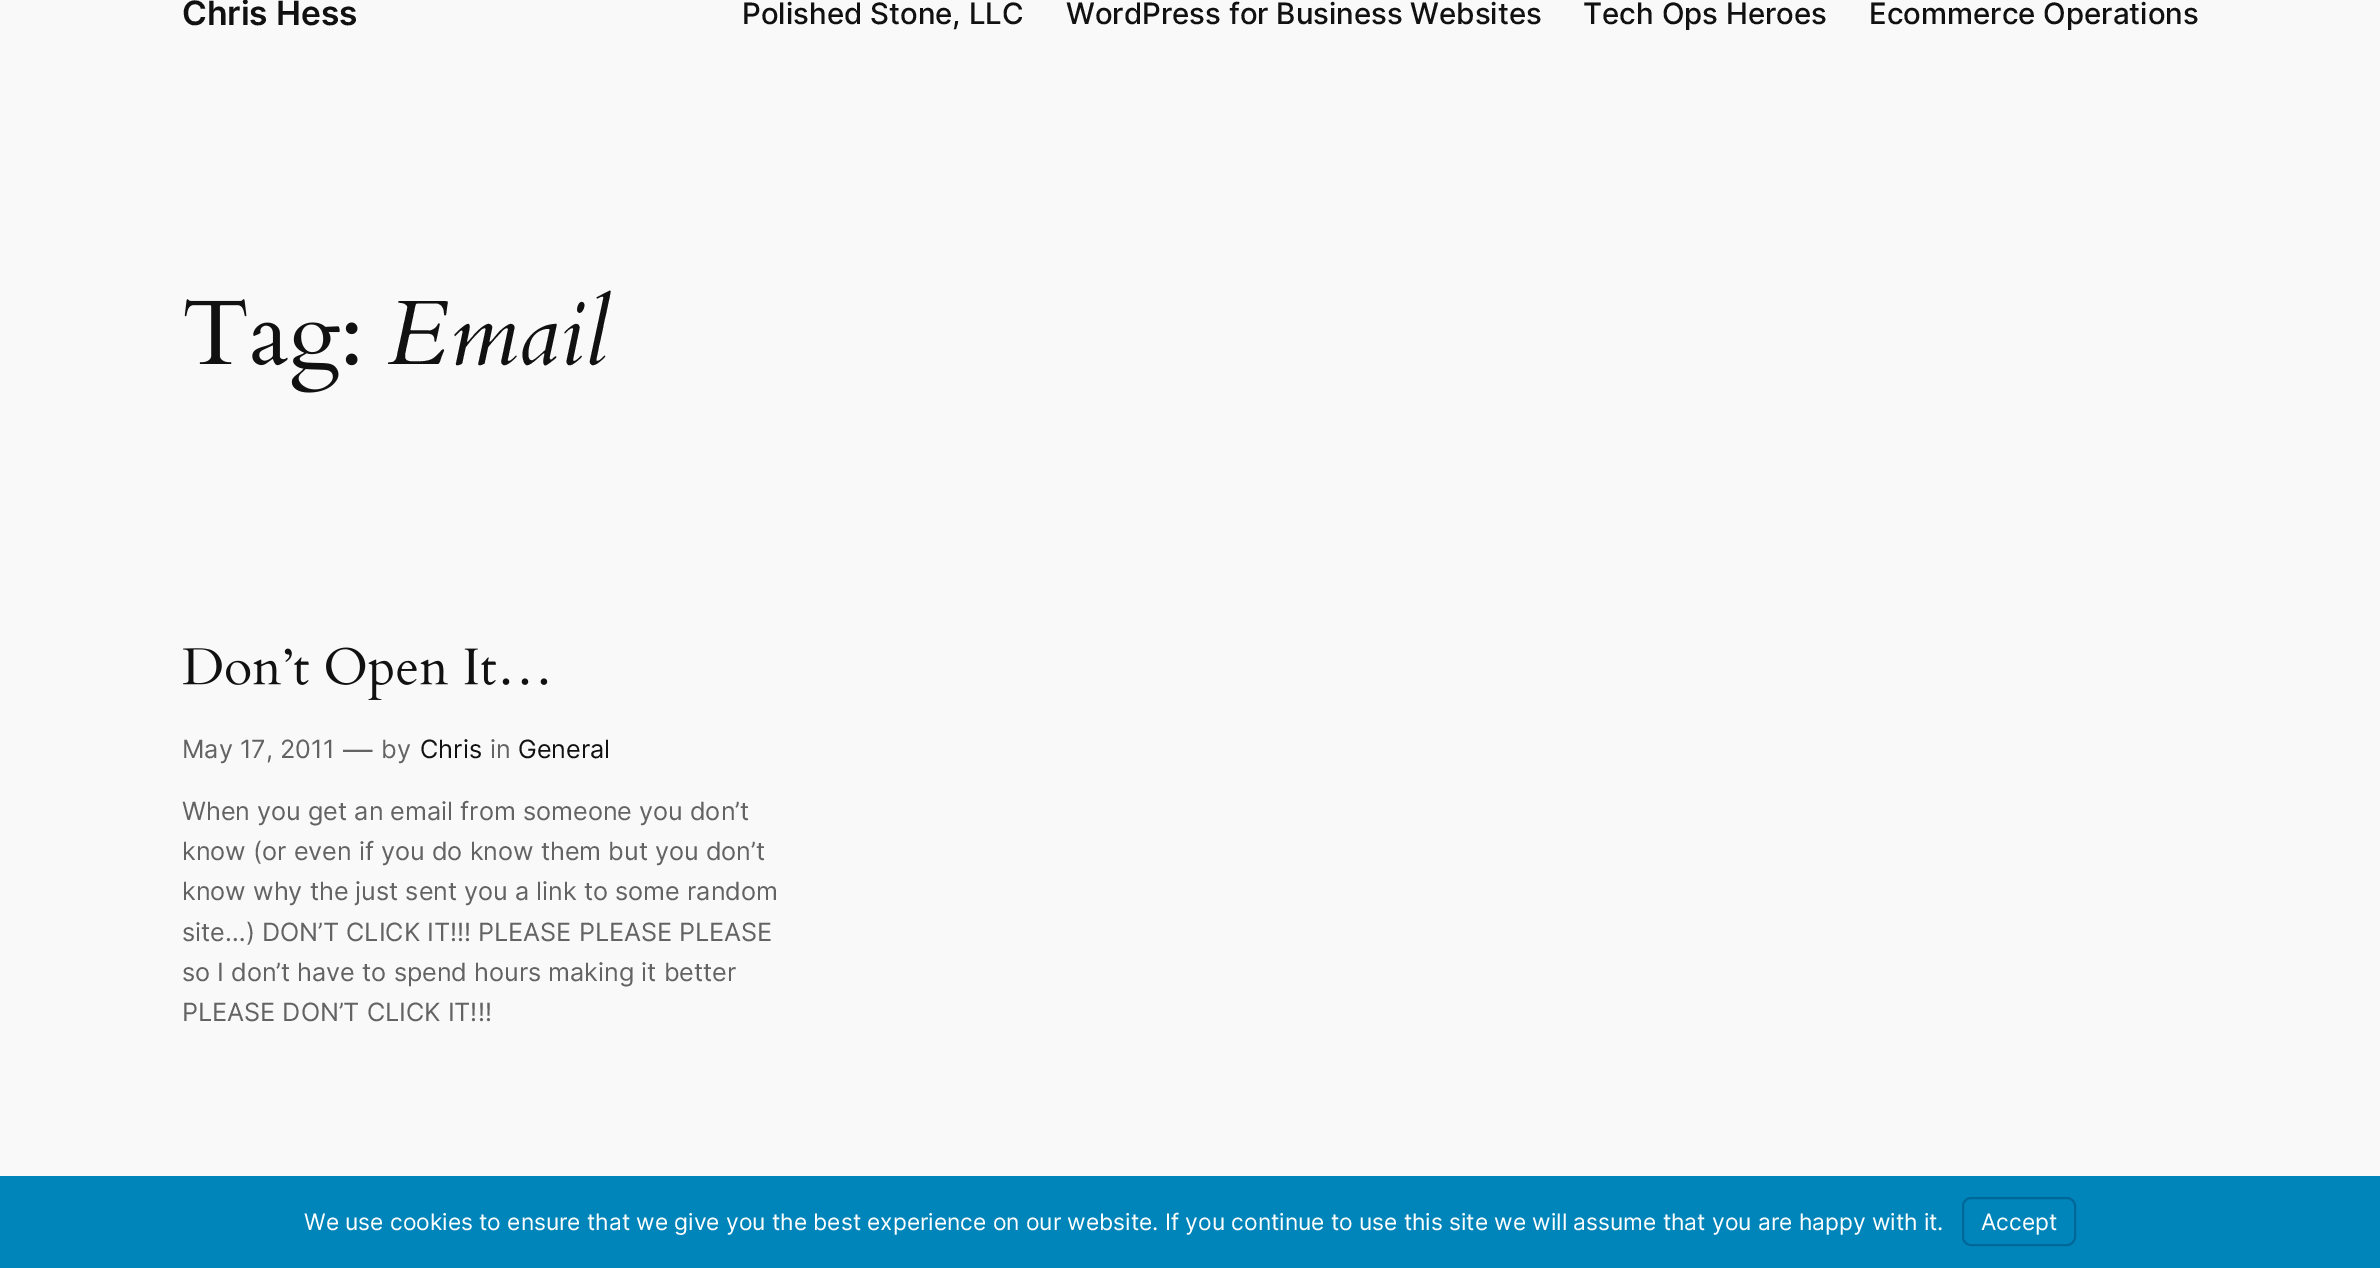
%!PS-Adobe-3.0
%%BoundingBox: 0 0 2380 1268
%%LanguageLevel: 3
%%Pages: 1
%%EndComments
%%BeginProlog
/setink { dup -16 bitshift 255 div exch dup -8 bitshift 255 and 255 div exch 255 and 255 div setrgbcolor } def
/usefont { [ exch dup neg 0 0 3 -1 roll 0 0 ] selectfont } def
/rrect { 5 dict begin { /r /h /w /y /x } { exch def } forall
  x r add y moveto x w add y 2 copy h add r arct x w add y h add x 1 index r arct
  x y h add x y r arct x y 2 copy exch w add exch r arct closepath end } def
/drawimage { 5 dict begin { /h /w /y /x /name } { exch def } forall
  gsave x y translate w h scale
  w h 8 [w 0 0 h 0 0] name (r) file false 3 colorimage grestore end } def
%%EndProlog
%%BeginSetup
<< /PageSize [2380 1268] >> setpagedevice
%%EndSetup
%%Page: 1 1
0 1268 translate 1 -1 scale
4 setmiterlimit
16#F9F9F9 setink
0 0 2380 1268 rectfill
/Inter-SemiBold 33.5 usefont
16#111111 setink
182 25 moveto (Chris Hess) show
/Inter-Medium 29.4 usefont
[
    [(Polished Stone, LLC) 742 24]
    [(WordPress for Business Websites) 1066 24]
    [(Tech Ops Heroes) 1583 24]
    [(Ecommerce Operations) 1869 24]
] { aload pop moveto show } forall
(img1.raw) 184 299 174 94 drawimage
/Cardo-Italic 91.5 usefont
388 364 moveto (Email) show
(img2.raw) 183 647 365 53 drawimage
/Inter-Regular 25.2 usefont
16#636363 setink
182 758 moveto (May 17, 2011) show
/Inter-Regular 29.4 usefont
343 760 moveto (—) show
/Inter-Regular 25.2 usefont
381 758 moveto (by) show
16#111111 setink
420 758 moveto (Chris) show
16#636363 setink
490 758 moveto (in) show
16#111111 setink
518 758 moveto (General) show
16#636363 setink
[
    [(When you get an email from someone you don’t) 182 820]
    [(know \(or even if you do know them but you don’t) 182 860]
    [(know why the just sent you a link to some random) 182 900]
    [(site…\) DON’T CLICK IT!!! PLEASE PLEASE PLEASE) 182 941]
    [(so I don’t have to spend hours making it better) 182 981]
    [(PLEASE DON’T CLICK IT!!!) 182 1021]
] { aload pop moveto show } forall
16#0085BA setink
0 1176 2380 92 rectfill
/Inter-Regular 22.75 usefont
16#FFFFFF setink
304 1230 moveto (We use cookies to ensure that we give you the best experience on our website. If you continue to use this site we will assume that you are happy with it.) show
16#006799 setink
2 setlinewidth
1963 1198 112 47 8 rrect stroke
16#FFFFFF setink
1981 1230 moveto (Accept) show
showpage
%%EOF
